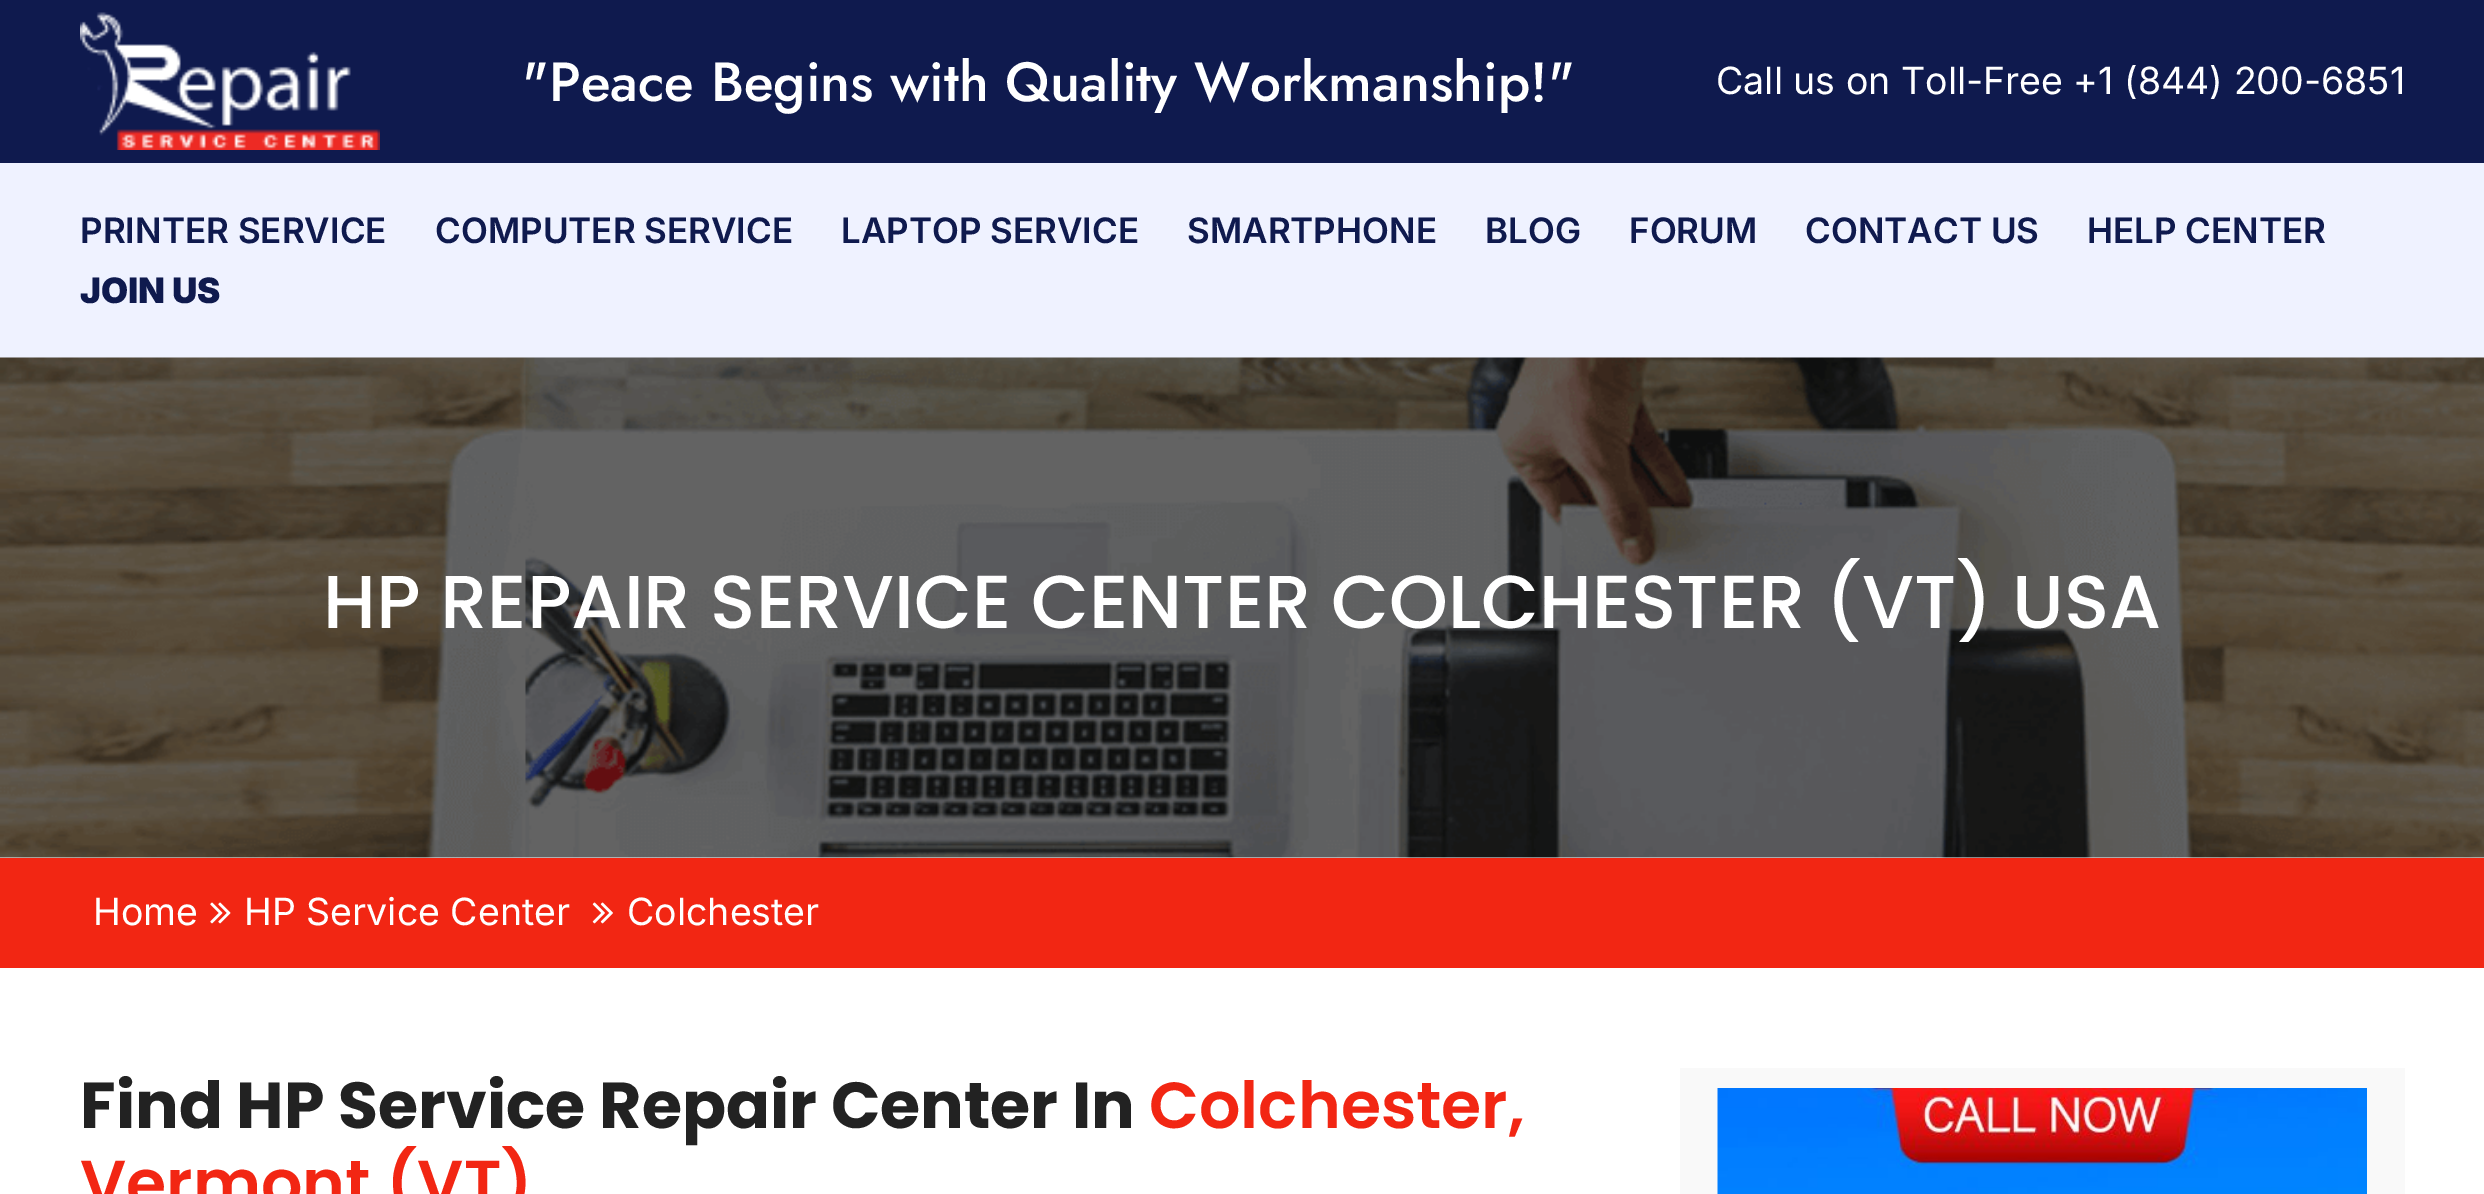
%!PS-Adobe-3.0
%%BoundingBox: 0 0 2484 1194
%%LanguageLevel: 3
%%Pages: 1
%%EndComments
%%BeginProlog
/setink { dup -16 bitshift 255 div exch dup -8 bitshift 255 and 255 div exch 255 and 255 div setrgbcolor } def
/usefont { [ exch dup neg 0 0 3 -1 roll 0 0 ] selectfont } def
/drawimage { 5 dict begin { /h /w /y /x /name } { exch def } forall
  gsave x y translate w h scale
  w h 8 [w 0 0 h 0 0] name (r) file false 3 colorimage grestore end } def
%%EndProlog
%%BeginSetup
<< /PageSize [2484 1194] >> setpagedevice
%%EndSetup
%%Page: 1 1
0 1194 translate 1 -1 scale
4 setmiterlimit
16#FFFFFF setink
0 0 2484 1194 rectfill
16#0F1A4E setink
0 0 2484 163 rectfill
(img1.raw) 80 12 300 138 drawimage
/Jost-Medium 55 usefont
16#FFFFFF setink
522 101 moveto ("Peace Begins with Quality Workmanship!") show
/Inter-Regular 37.5 usefont
1716 94 moveto (Call us on Toll-Free +1 \(844\) 200-6851) show
16#EFF2FF setink
0 163 2484 195 rectfill
/Inter-SemiBold 35 usefont
16#0F1A4E setink
[
    [(PRINTER SERVICE) 80 243]
    [(COMPUTER SERVICE) 435 243]
    [(LAPTOP SERVICE) 841 243]
    [(SMARTPHONE) 1187 243]
    [(BLOG) 1485 243]
    [(FORUM) 1629 243]
    [(CONTACT US) 1805 243]
    [(HELP CENTER) 2087 243]
] { aload pop moveto show } forall
/Inter-Black 35 usefont
80 303 moveto (JOIN US) show
(img2.raw) 0 357 2484 501 drawimage
/Poppins-Medium 75 usefont
16#FFFFFF setink
323 628 moveto (HP REPAIR SERVICE CENTER COLCHESTER \(VT\) USA) show
16#F22613 setink
0 858 2484 110 rectfill
/Inter-Regular 37.5 usefont
16#FFFFFF setink
93 925 moveto (Home) show
(img3.raw) 210 902 21 22 drawimage
244 925 moveto (HP Service Center) show
(img4.raw) 592 902 21 22 drawimage
627 925 moveto (Colchester) show
/Poppins-Bold 65 usefont
16#222222 setink
80 1128 moveto (Find HP Service Repair Center In) show
/Poppins-SemiBold 65 usefont
16#F22613 setink
1149 1128 moveto (Colchester,) show
80 1206 moveto (Vermont \(VT\)) show
16#F9F9F9 setink
1680 1068 725 126 rectfill
(img5.raw) 1717 1088 650 106 drawimage
showpage
%%EOF
